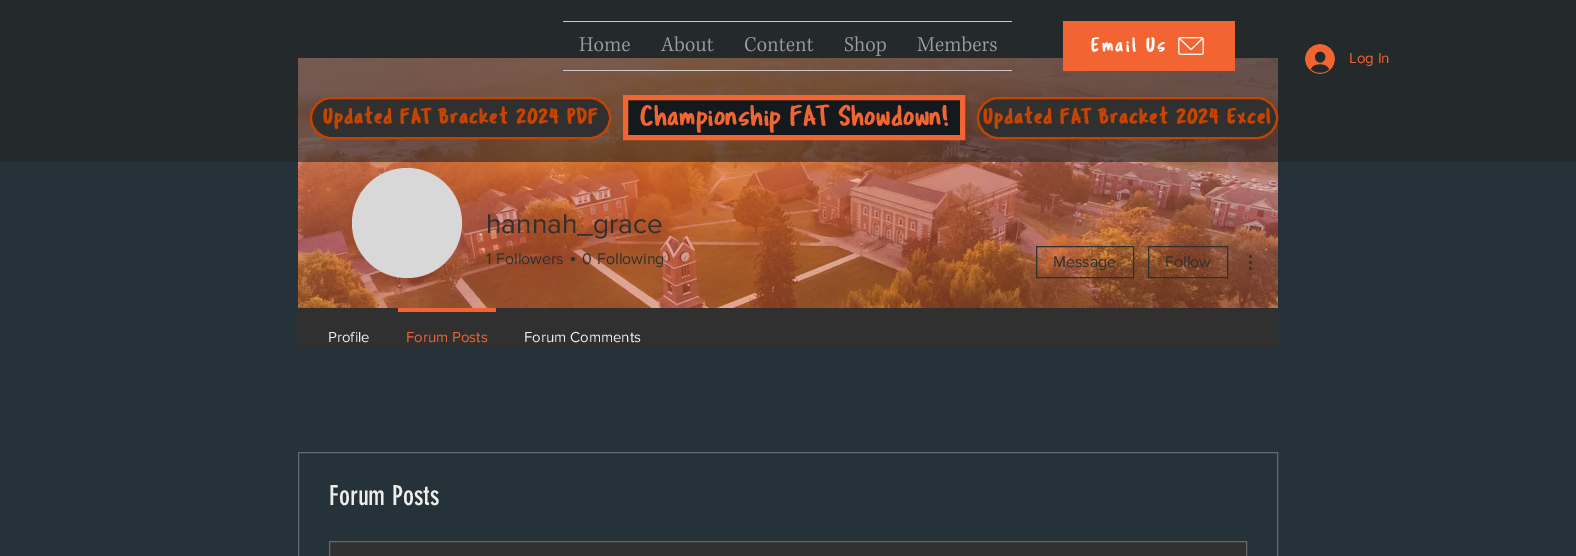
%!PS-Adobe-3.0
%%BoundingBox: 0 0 1576 556
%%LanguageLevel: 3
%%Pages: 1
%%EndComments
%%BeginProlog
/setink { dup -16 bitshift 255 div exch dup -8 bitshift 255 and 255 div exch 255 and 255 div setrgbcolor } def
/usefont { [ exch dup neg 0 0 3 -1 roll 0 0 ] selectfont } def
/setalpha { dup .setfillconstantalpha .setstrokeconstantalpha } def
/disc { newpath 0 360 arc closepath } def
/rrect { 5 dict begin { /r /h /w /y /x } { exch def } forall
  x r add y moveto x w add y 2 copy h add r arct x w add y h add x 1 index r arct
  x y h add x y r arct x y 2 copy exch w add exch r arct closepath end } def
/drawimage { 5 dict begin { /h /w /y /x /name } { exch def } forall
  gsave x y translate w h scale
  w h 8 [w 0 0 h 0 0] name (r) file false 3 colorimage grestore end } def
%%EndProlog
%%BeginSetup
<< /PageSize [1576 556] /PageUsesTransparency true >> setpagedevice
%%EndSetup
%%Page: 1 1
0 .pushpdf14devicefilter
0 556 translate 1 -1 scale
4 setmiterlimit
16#253239 setink
0 0 1576 556 rectfill
16#F26532 setink
298 58 980 250 rectfill
(img8.raw) 298 58 980 250 drawimage
0.6 setalpha
[
    [0 0 1576 162 16#232323]
] { aload pop setink rectfill } forall
1 setalpha
[
    [563 21 449 1 16#CACACA]
    [563 70 449 1 16#CACACA]
] { aload pop setink rectfill } forall
(img1.raw) 579 37 51 15 drawimage
(img2.raw) 660 36 54 16 drawimage
(img3.raw) 745 37 69 15 drawimage
(img4.raw) 845 36 41 20 drawimage
(img5.raw) 917 36 80 16 drawimage
16#F26532 setink
1063 21 172 50 rectfill
/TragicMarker-Regular 21 usefont
16#FFFFFF setink
1091 52 moveto 2 0 (Email Us) ashow
(img6.raw) 1178 37 26 18 drawimage
(img7.raw) 1305 44 30 30 drawimage
/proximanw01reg-Regular 15 usefont
16#F26532 setink
1349 63 moveto (Log In) show
16#2F302F setink
311 98 299 40 20 rrect gsave fill grestore
16#C74300 setink
2 setlinewidth
stroke
/TragicMarker-Bold 22 usefont
323 124 moveto 1.1 0 (Updated FAT Bracket 2024 PDF) ashow
16#13191D setink
625.5 97.5 moveto 962.5 97.5 lineto 962.5 137.5 lineto 625.5 137.5 lineto closepath gsave fill grestore
16#F26532 setink
5 setlinewidth
stroke
/TragicMarker-Regular 30 usefont
640 126 moveto (Championship FAT Showdown!) show
16#2F302F setink
978 98 299 40 20 rrect gsave fill grestore
16#C74300 setink
2 setlinewidth
stroke
/TragicMarker-Bold 22 usefont
983 124 moveto 1.1 0 (Updated FAT Bracket 2024 Excel) ashow
16#D8D8D8 setink
407 223 55 disc fill
/proximanw01reg-Regular 28 usefont
16#2F302F setink
486 233 moveto (hannah_grace) show
/proximanw01reg-Regular 16 usefont
486 264 moveto (1) show
496 264 moveto (Followers) show
573 259 2 disc fill
582 264 moveto (0) show
597 264 moveto (Following) show
1 setlinewidth
1036.5 246.5 97 31 rectstroke
1053 267 moveto (Message) show
1148.5 246.5 79 31 rectstroke
1165 267 moveto (Follow) show
(img9.raw) 1249 255 3 15 drawimage
298 308 980 40 rectfill
/proximanw01reg-Regular 15 usefont
16#EDEEEB setink
328 342 moveto (Profile) show
16#F26532 setink
398 308 98 4 rectfill
406 342 moveto (Forum Posts) show
16#EDEEEB setink
524 342 moveto (Forum Comments) show
16#616A6E setink
298.5 452.5 979 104 rectstroke
/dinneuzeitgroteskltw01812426-Regular 27 usefont
16#EDEEEB setink
329 505 moveto (Forum Posts) show
16#2F302F setink
329.5 541.5 moveto 1246.5 541.5 lineto 1246.5 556.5 lineto 329.5 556.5 lineto closepath gsave fill grestore
16#686967 setink
stroke
.poppdf14devicefilter showpage
%%EOF
